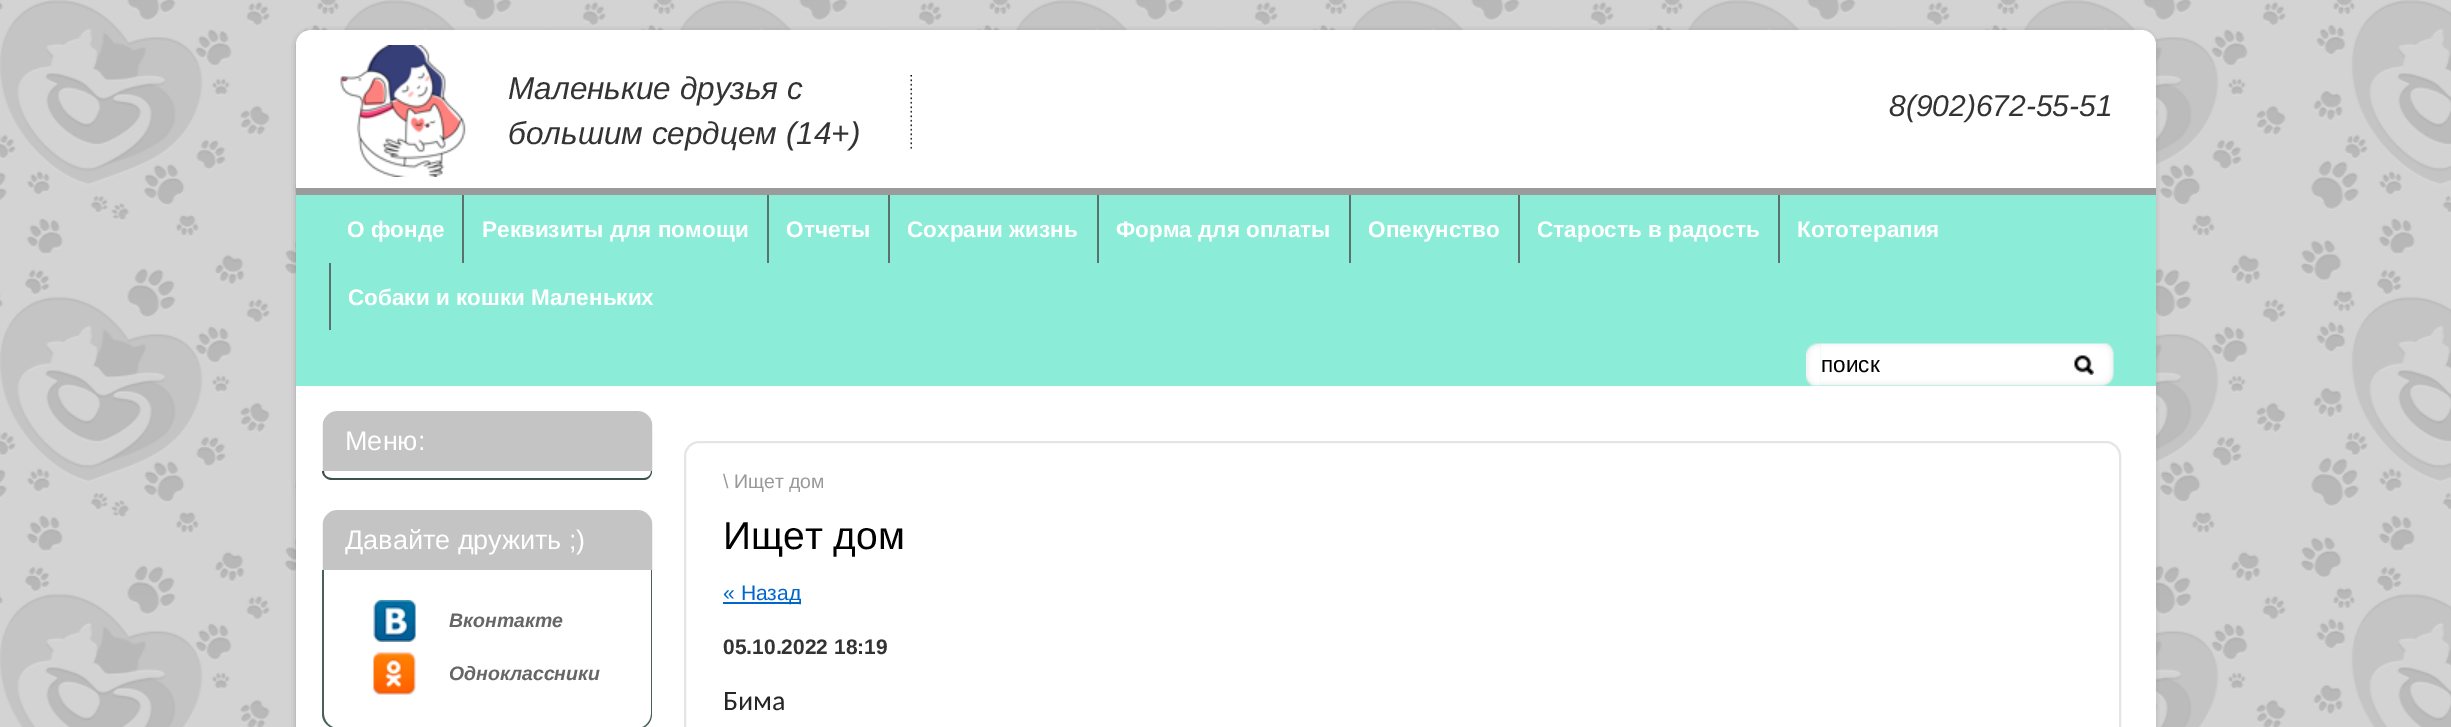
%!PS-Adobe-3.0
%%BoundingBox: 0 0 2451 727
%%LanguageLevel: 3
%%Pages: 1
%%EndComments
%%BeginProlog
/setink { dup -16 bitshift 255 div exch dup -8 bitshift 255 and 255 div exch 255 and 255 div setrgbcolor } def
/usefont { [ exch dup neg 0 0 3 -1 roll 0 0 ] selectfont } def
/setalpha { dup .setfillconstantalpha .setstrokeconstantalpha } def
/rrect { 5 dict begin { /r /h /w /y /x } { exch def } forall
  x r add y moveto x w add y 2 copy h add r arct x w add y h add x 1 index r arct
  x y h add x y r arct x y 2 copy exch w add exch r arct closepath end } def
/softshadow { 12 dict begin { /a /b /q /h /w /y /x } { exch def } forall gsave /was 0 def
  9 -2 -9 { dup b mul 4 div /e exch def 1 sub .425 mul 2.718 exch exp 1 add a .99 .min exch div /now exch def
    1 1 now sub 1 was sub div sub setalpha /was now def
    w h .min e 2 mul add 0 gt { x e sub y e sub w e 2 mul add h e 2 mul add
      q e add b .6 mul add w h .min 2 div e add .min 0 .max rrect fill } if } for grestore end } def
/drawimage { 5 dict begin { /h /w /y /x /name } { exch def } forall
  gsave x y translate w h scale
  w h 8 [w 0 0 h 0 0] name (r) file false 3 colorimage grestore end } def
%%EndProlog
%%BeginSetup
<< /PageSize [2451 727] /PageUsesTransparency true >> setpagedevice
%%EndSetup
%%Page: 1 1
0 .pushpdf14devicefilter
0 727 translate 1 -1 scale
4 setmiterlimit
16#FFFFFF setink
0 0 2451 727 rectfill
(img1.raw) 0 0 2451 727 drawimage
16#2F3B38 setink
300 35 1851 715 11 4 1 softshadow
16#FFFFFF setink
296 30 1860 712 15 rrect fill
(img2.raw) 340 45 126 132 drawimage
(img3.raw) 910 75 2 74 drawimage
/LiberationSans-Italic 31.5 usefont
16#333333 setink
508 99 moveto (Маленькие друзья с) show
508 144 moveto (большим сердцем \(14+\)) show
/LiberationSans-Italic 30 usefont
1889 116 moveto (8\(902\)672-55-51) show
16#8BECD8 setink
296 195 1860 191 rectfill
16#9B9B9B setink
296 188 1860 7 rectfill
/LiberationSans-Bold 22.5 usefont
16#FFFFFF setink
347 237 moveto (О фонде) show
16#5B716C setink
462 195 2 68 rectfill
16#FFFFFF setink
482 237 moveto (Реквизиты для помощи) show
16#5B716C setink
767 195 2 68 rectfill
16#FFFFFF setink
786 237 moveto (Отчеты) show
16#5B716C setink
888 195 2 68 rectfill
16#FFFFFF setink
907 237 moveto (Сохрани жизнь) show
16#5B716C setink
1097 195 2 68 rectfill
16#FFFFFF setink
1116 237 moveto (Форма для оплаты) show
16#5B716C setink
1349 195 2 68 rectfill
16#FFFFFF setink
1368 237 moveto (Опекунство) show
16#5B716C setink
1518 195 2 68 rectfill
16#FFFFFF setink
1537 237 moveto (Старость в радость) show
16#5B716C setink
1778 195 2 68 rectfill
16#FFFFFF setink
1797 237 moveto (Кототерапия) show
16#5B716C setink
329 263 2 67 rectfill
16#FFFFFF setink
348 305 moveto (Собаки и кошки Маленьких) show
(img4.raw) 1806 343 16 43 drawimage
(img5.raw) 1821 343 293 43 drawimage
/LiberationSans-Regular 22.5 usefont
16#000000 setink
1821 372 moveto (поиск) show
(img6.raw) 2074 355 20 20 drawimage
(img7.raw) 322 411 331 60 drawimage
/LiberationSans-Regular 27 usefont
16#FFFFFF setink
345 450 moveto (Меню:) show
16#3E524D setink
322 471 moveto 652 471 lineto 652 476 648 480 644 480 curveto 332 480 lineto 327 480 322 476 322 471 curveto closepath 324 471 moveto 651 471 lineto 651 475 648 478 644 478 curveto 332 478 lineto 327 478 324 475 324 471 curveto closepath eofill
(img7.raw) 322 510 331 60 drawimage
16#FFFFFF setink
345 549 moveto (Давайте дружить ;\)) show
16#4A605B setink
322 570 moveto 652 570 lineto 652 714 lineto 652 722 646 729 638 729 curveto 338 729 lineto 329 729 322 722 322 714 curveto closepath 324 570 moveto 651 570 lineto 651 714 lineto 651 721 645 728 638 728 curveto 338 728 lineto 330 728 324 721 324 714 curveto closepath eofill
(img8.raw) 373 600 43 42 drawimage
/LiberationSans-BoldItalic 19.5 usefont
16#666666 setink
449 627 moveto (Вконтакте) show
(img9.raw) 373 652 43 43 drawimage
449 680 moveto (Одноклассники) show
16#E5E5E5 setink
2 setlinewidth
685 442 1435 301 14 rrect stroke
/LiberationSans-Regular 19.5 usefont
16#999999 setink
723 488 moveto (\\ Ищет дом) show
/LiberationSans-Regular 39 usefont
16#000000 setink
723 549 moveto (Ищет дом) show
16#0066CC setink
723 602 78 2 rectfill
/LiberationSans-Regular 21 usefont
723 600 moveto (« Назад) show
/LiberationSans-Bold 21 usefont
16#333333 setink
723 654 moveto (05.10.2022 18:19) show
/Carlito-Regular 28 usefont
16#262626 setink
723 710 moveto (Бима) show
.poppdf14devicefilter showpage
%%EOF
